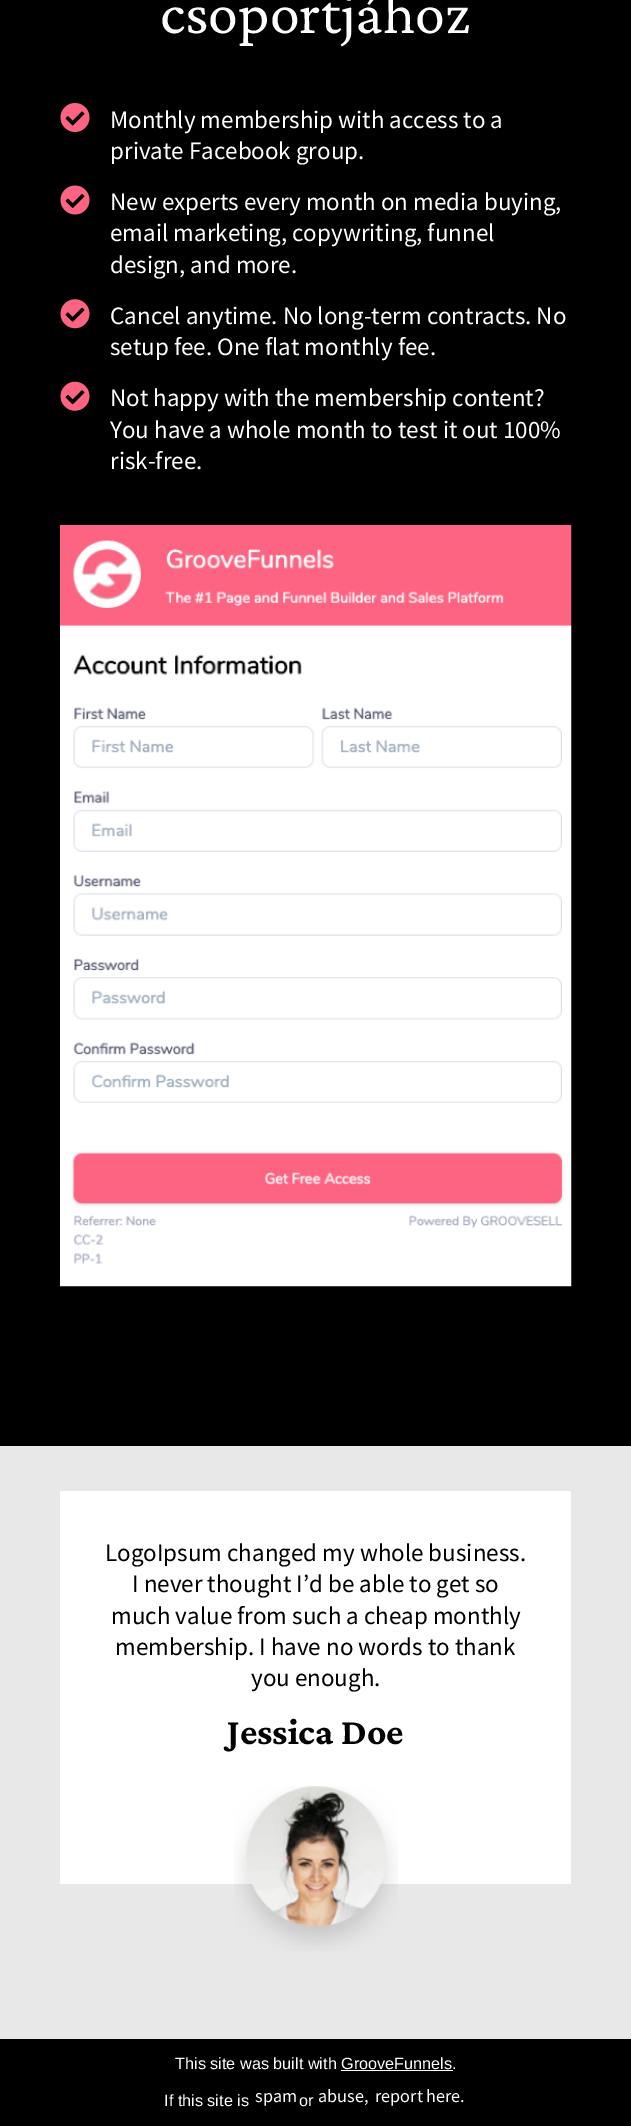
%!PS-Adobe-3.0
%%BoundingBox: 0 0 631 2126
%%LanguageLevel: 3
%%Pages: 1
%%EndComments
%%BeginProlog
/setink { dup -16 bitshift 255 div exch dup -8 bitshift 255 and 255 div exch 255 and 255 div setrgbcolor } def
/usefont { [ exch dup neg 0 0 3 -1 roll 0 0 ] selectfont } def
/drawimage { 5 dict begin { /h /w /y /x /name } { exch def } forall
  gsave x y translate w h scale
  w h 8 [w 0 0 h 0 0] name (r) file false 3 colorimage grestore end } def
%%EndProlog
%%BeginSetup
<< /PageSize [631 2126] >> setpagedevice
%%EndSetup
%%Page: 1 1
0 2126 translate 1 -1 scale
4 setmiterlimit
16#000000 setink
0 0 631 2126 rectfill
/CrimsonPro-Regular 60 usefont
16#FFFFFF setink
160 33 moveto (csoportjához) show
(img1.raw) 60 103 30 29 drawimage
/SourceSansPro-Regular 25 usefont
110 128 moveto (Monthly membership with access to a) show
110 159 moveto (private Facebook group.) show
(img2.raw) 60 185 30 30 drawimage
[
    [(New experts every month on media buying,) 110 210]
    [(email marketing, copywriting, funnel) 110 241]
    [(design, and more.) 110 273]
] { aload pop moveto show } forall
(img3.raw) 60 299 30 30 drawimage
110 324 moveto (Cancel anytime. No long-term contracts. No) show
110 355 moveto (setup fee. One flat monthly fee.) show
(img4.raw) 60 381 30 30 drawimage
[
    [(Not happy with the membership content?) 110 406]
    [(You have a whole month to test it out 100%) 110 438]
    [(risk-free.) 110 469]
] { aload pop moveto show } forall
(img5.raw) 60 525 512 762 drawimage
16#E8E8E8 setink
0 1446 631 593 rectfill
16#FFFFFF setink
60 1491 511 393 rectfill
16#000000 setink
[
    [(LogoIpsum changed my whole business.) 105 1561]
    [(I never thought I’d be able to get so) 132 1592]
    [(much value from such a cheap monthly) 111 1624]
    [(membership. I have no words to thank) 115 1655]
    [(you enough.) 251 1686]
] { aload pop moveto show } forall
/CrimsonPro-Bold 37.5 usefont
227 1744 moveto (Jessica Doe) show
(img6.raw) 234 1786 164 165 drawimage
/LiberationSans-Regular 16.25 usefont
16#FFFFFF setink
175 2069 moveto (This site was built with GrooveFunnels.) show
341 2070 112 1 rectfill
164 2106 moveto (If this site is) show
/NotoSansJP-Regular 16.25 usefont
255 2102 moveto (spam) show
/LiberationSans-Regular 16.25 usefont
299 2106 moveto (or) show
/NotoSansJP-Regular 16.25 usefont
318 2102 moveto (abuse,) show
375 2102 moveto (report here.) show
showpage
%%EOF
